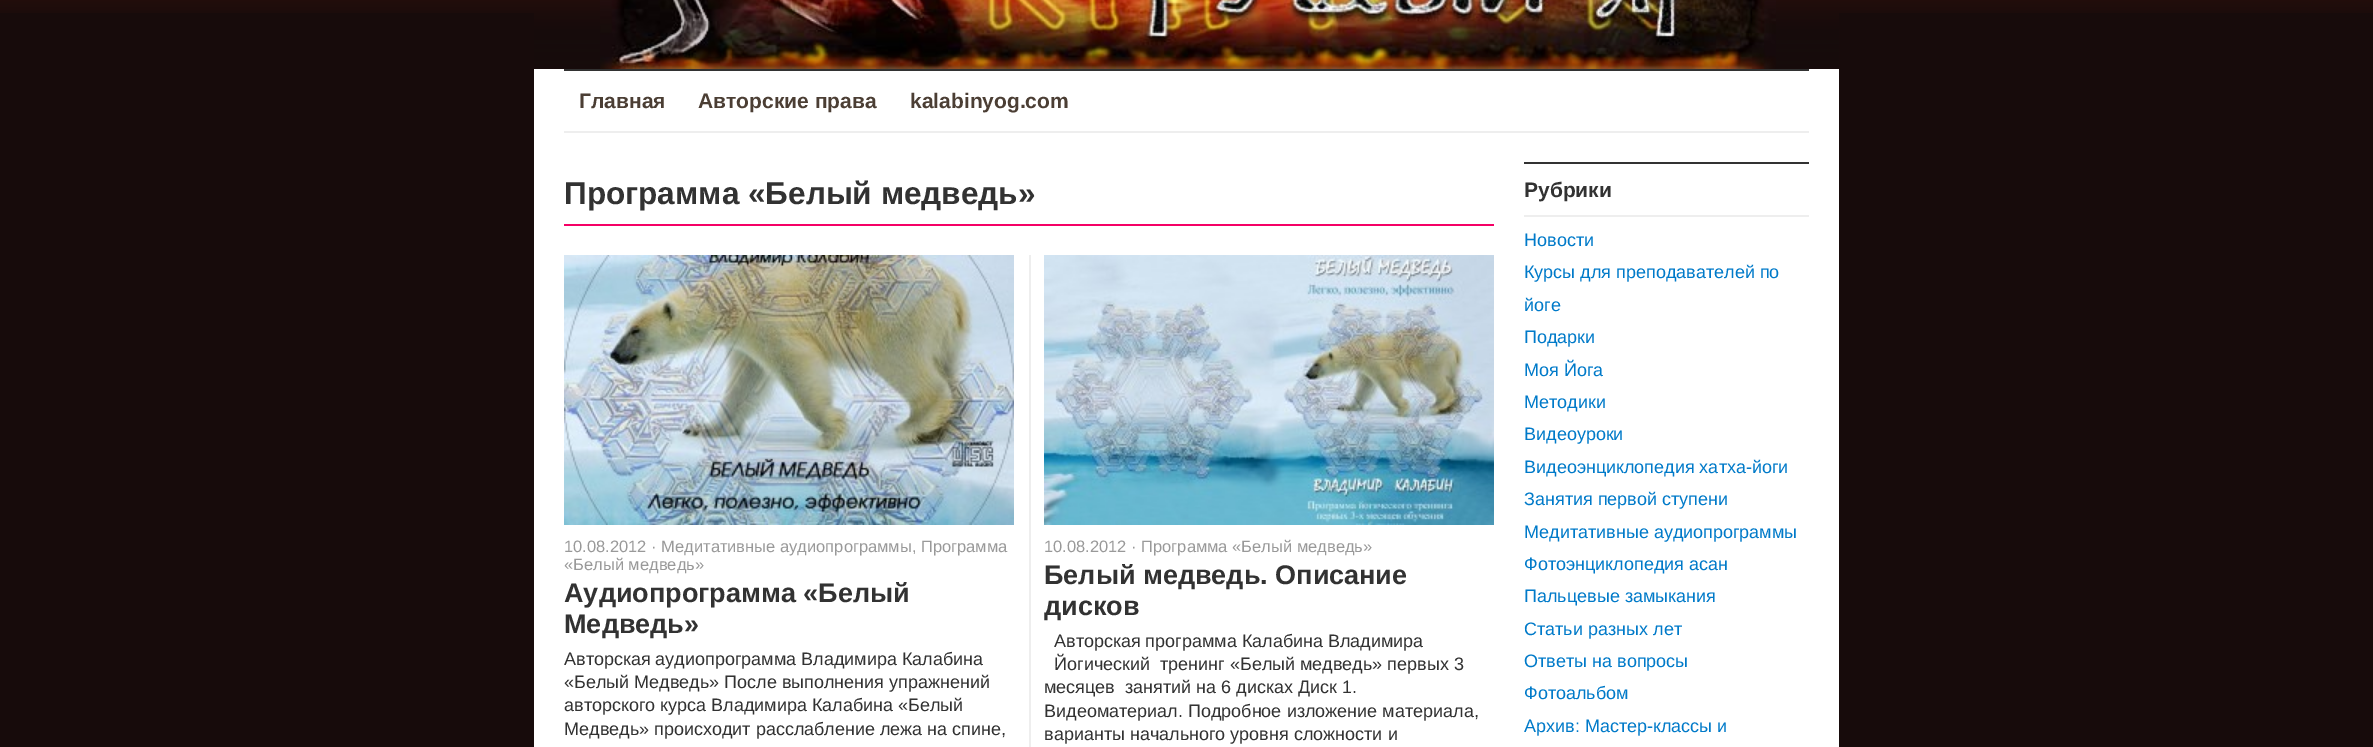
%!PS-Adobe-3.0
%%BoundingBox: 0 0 2373 747
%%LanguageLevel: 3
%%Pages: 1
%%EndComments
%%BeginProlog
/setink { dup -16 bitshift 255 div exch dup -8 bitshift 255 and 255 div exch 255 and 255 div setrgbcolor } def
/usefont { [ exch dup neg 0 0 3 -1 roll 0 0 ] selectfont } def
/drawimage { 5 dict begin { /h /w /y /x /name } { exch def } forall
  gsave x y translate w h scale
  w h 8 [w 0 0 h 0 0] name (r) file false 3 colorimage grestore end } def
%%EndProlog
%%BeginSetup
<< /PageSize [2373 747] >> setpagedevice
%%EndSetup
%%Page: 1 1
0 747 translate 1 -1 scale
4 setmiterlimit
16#170B0B setink
0 0 2373 747 rectfill
(img1.raw) 0 0 2373 13 drawimage
16#FFFFFF setink
534 69 1305 678 rectfill
(img2.raw) 534 0 1305 69 drawimage
(img3.raw) 600 0 1176 69 drawimage
16#323232 setink
564 69 1245 2 rectfill
16#EEEEEE setink
564 131 1245 2 rectfill
/LiberationSans-Bold 21 usefont
16#4B3E34 setink
[
    [(Главная) 579 108]
    [(Авторские права) 698 108]
    [(kalabinyog.com) 910 108]
] { aload pop moveto show } forall
16#F50065 setink
564 224 930 2 rectfill
/LiberationSans-Bold 31.5 usefont
16#323232 setink
564 204 moveto (Программа «Белый медведь») show
(img4.raw) 564 255 450 270 drawimage
/LiberationSans-Regular 16.5 usefont
16#999999 setink
564 552 moveto (10.08.2012 · Медитативные аудиопрограммы, Программа) show
564 570 moveto («Белый медведь») show
/LiberationSans-Bold 27 usefont
16#323232 setink
564 602 moveto (Аудиопрограмма «Белый) show
564 633 moveto (Медведь») show
/LiberationSans-Regular 18 usefont
[
    [(Авторская аудиопрограмма Владимира Калабина) 564 665]
    [(«Белый Медведь» После выполнения упражнений) 564 688]
    [(авторского курса Владимира Калабина «Белый) 564 711]
    [(Медведь» происходит расслабление лежа на спине,) 564 735]
] { aload pop moveto show } forall
16#EEEEEE setink
1029 255 2 492 rectfill
(img5.raw) 1044 255 450 270 drawimage
/LiberationSans-Regular 16.5 usefont
16#999999 setink
1044 552 moveto (10.08.2012 · Программа «Белый медведь») show
/LiberationSans-Bold 27 usefont
16#323232 setink
1044 584 moveto (Белый медведь. Описание) show
1044 615 moveto (дисков) show
/LiberationSans-Regular 18 usefont
[
    [(Авторская программа Калабина Владимира) 1054 647]
    [(Йогический  тренинг «Белый медведь» первых 3) 1054 670]
    [(месяцев  занятий на 6 дисках Диск 1.) 1044 693]
    [(Видеоматериал. Подробное изложение материала,) 1044 717]
    [(варианты начального уровня сложности и) 1044 740]
] { aload pop moveto show } forall
1524 162 285 2 rectfill
16#EEEEEE setink
1524 215 285 2 rectfill
/LiberationSans-Bold 21 usefont
16#323232 setink
1524 197 moveto (Рубрики) show
/LiberationSans-Regular 18 usefont
16#007AC9 setink
[
    [(Новости) 1524 246]
    [(Курсы для преподавателей по) 1524 278]
    [(йоге) 1524 311]
    [(Подарки) 1524 343]
    [(Моя Йога) 1524 376]
    [(Методики) 1524 408]
    [(Видеоуроки) 1524 440]
    [(Видеоэнциклопедия хатха-йоги) 1524 473]
    [(Занятия первой ступени) 1524 505]
    [(Медитативные аудиопрограммы) 1524 538]
    [(Фотоэнциклопедия асан) 1524 570]
    [(Пальцевые замыкания) 1524 602]
    [(Статьи разных лет) 1524 635]
    [(Ответы на вопросы) 1524 667]
    [(Фотоальбом) 1524 699]
    [(Архив: Мастер-классы и) 1524 732]
] { aload pop moveto show } forall
showpage
%%EOF
